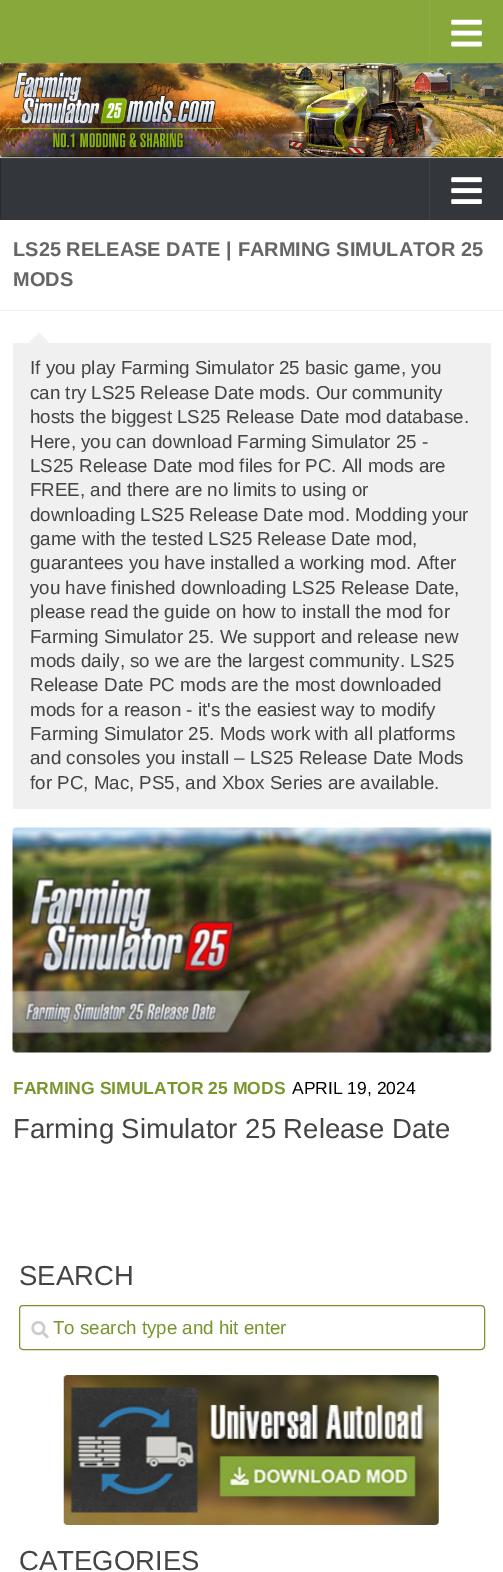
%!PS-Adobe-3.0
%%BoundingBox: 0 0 503 1572
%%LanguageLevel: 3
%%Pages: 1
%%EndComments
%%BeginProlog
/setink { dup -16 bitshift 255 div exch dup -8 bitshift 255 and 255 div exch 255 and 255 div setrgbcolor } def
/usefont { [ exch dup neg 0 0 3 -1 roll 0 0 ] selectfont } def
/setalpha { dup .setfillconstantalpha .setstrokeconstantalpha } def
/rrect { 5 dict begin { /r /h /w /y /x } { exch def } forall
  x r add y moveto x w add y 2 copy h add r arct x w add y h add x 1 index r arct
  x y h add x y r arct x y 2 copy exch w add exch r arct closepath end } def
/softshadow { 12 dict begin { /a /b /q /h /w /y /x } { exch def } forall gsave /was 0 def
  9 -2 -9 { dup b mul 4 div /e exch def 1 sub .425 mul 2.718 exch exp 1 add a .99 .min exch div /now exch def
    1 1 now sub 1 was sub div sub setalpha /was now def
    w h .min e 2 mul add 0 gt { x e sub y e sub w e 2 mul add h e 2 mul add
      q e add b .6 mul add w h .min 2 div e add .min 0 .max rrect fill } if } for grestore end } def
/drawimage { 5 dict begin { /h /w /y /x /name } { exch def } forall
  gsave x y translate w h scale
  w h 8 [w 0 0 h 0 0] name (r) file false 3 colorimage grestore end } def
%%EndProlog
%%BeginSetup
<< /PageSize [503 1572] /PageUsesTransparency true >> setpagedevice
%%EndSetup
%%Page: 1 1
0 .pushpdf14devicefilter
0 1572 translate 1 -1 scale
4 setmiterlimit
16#FFFFFF setink
0 0 503 1572 rectfill
(img2.raw) 0 63 503 95 drawimage
0.15 setalpha
0 62 moveto 0 64 lineto 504 64 lineto 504 1 lineto 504 62 lineto closepath fill
1 setalpha
16#000000 setink
0 0 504 63 0 3 0.2 softshadow
16#88A83B setink
0 0 503 63 rectfill
16#8FAD47 setink
429 0 1 63 rectfill
(img1.raw) 451 19 31 28 drawimage
0.2 setalpha
16#000000 setink
0 156 moveto 0 158 lineto 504 158 lineto 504 219 lineto 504 156 lineto closepath fill
1 setalpha
[
    [1 159 502 61 16#33363B]
    [429 158 1 62 16#3F4247]
    [0 158 503 1 16#3D4045]
    [429 158 1 1 16#494B50]
    [0 158 1 62 16#292B2F]
    [0 158 1 1 16#343639]
] { aload pop setink rectfill } forall
(img3.raw) 451 177 31 27 drawimage
16#EEEEEE setink
0 310 503 1 rectfill
/LiberationSans-Bold 20 usefont
16#666666 setink
13 256 moveto (LS25 RELEASE DATE | FARMING SIMULATOR 25) show
13 286 moveto (MODS) show
16#F0F0F0 setink
13 343 478 466 rectfill
16#F1F1F1 setink
49 342.5 moveto 29 342.5 lineto 39 332.5 lineto closepath fill
46 344 moveto 31 344 lineto 39 336 lineto closepath fill
/LiberationSans-Regular 18.75 usefont
16#444444 setink
[
    [(If you play Farming Simulator 25 basic game, you) 30 374]
    [(can try LS25 Release Date mods. Our community) 30 399]
    [(hosts the biggest LS25 Release Date mod database.) 30 423]
    [(Here, you can download Farming Simulator 25 -) 30 448]
    [(LS25 Release Date mod files for PC. All mods are) 30 472]
    [(FREE, and there are no limits to using or) 30 496]
    [(downloading LS25 Release Date mod. Modding your) 30 521]
    [(game with the tested LS25 Release Date mod,) 30 545]
    [(guarantees you have installed a working mod. After) 30 569]
    [(you have finished downloading LS25 Release Date,) 30 594]
    [(please read the guide on how to install the mod for) 30 618]
    [(Farming Simulator 25. We support and release new) 30 643]
    [(mods daily, so we are the largest community. LS25) 30 667]
    [(Release Date PC mods are the most downloaded) 30 691]
    [(mods for a reason - it's the easiest way to modify) 30 716]
    [(Farming Simulator 25. Mods work with all platforms) 30 740]
    [(and consoles you install – LS25 Release Date Mods) 30 764]
    [(for PC, Mac, PS5, and Xbox Series are available.) 30 789]
] { aload pop moveto show } forall
(img4.raw) 12 827 480 226 drawimage
/LiberationSans-Bold 17.5 usefont
16#78962D setink
13 1094 moveto (FARMING SIMULATOR 25 MODS) show
/LiberationSans-Regular 17.5 usefont
16#000000 setink
292 1094 moveto (APRIL 19, 2024) show
/LiberationSans-Regular 27.5 usefont
16#444444 setink
13 1138 moveto (Farming Simulator 25 Release Date) show
19 1285 moveto (SEARCH) show
16#78962D setink
19.5 1305.5 465 44 3.5 rrect stroke
(img5.raw) 31 1321 18 18 drawimage
/LiberationSans-Regular 18.75 usefont
53 1334 moveto (To search type and hit enter) show
(img6.raw) 63 1375 376 150 drawimage
/LiberationSans-Regular 27.5 usefont
16#444444 setink
19 1570 moveto (CATEGORIES) show
.poppdf14devicefilter showpage
%%EOF
